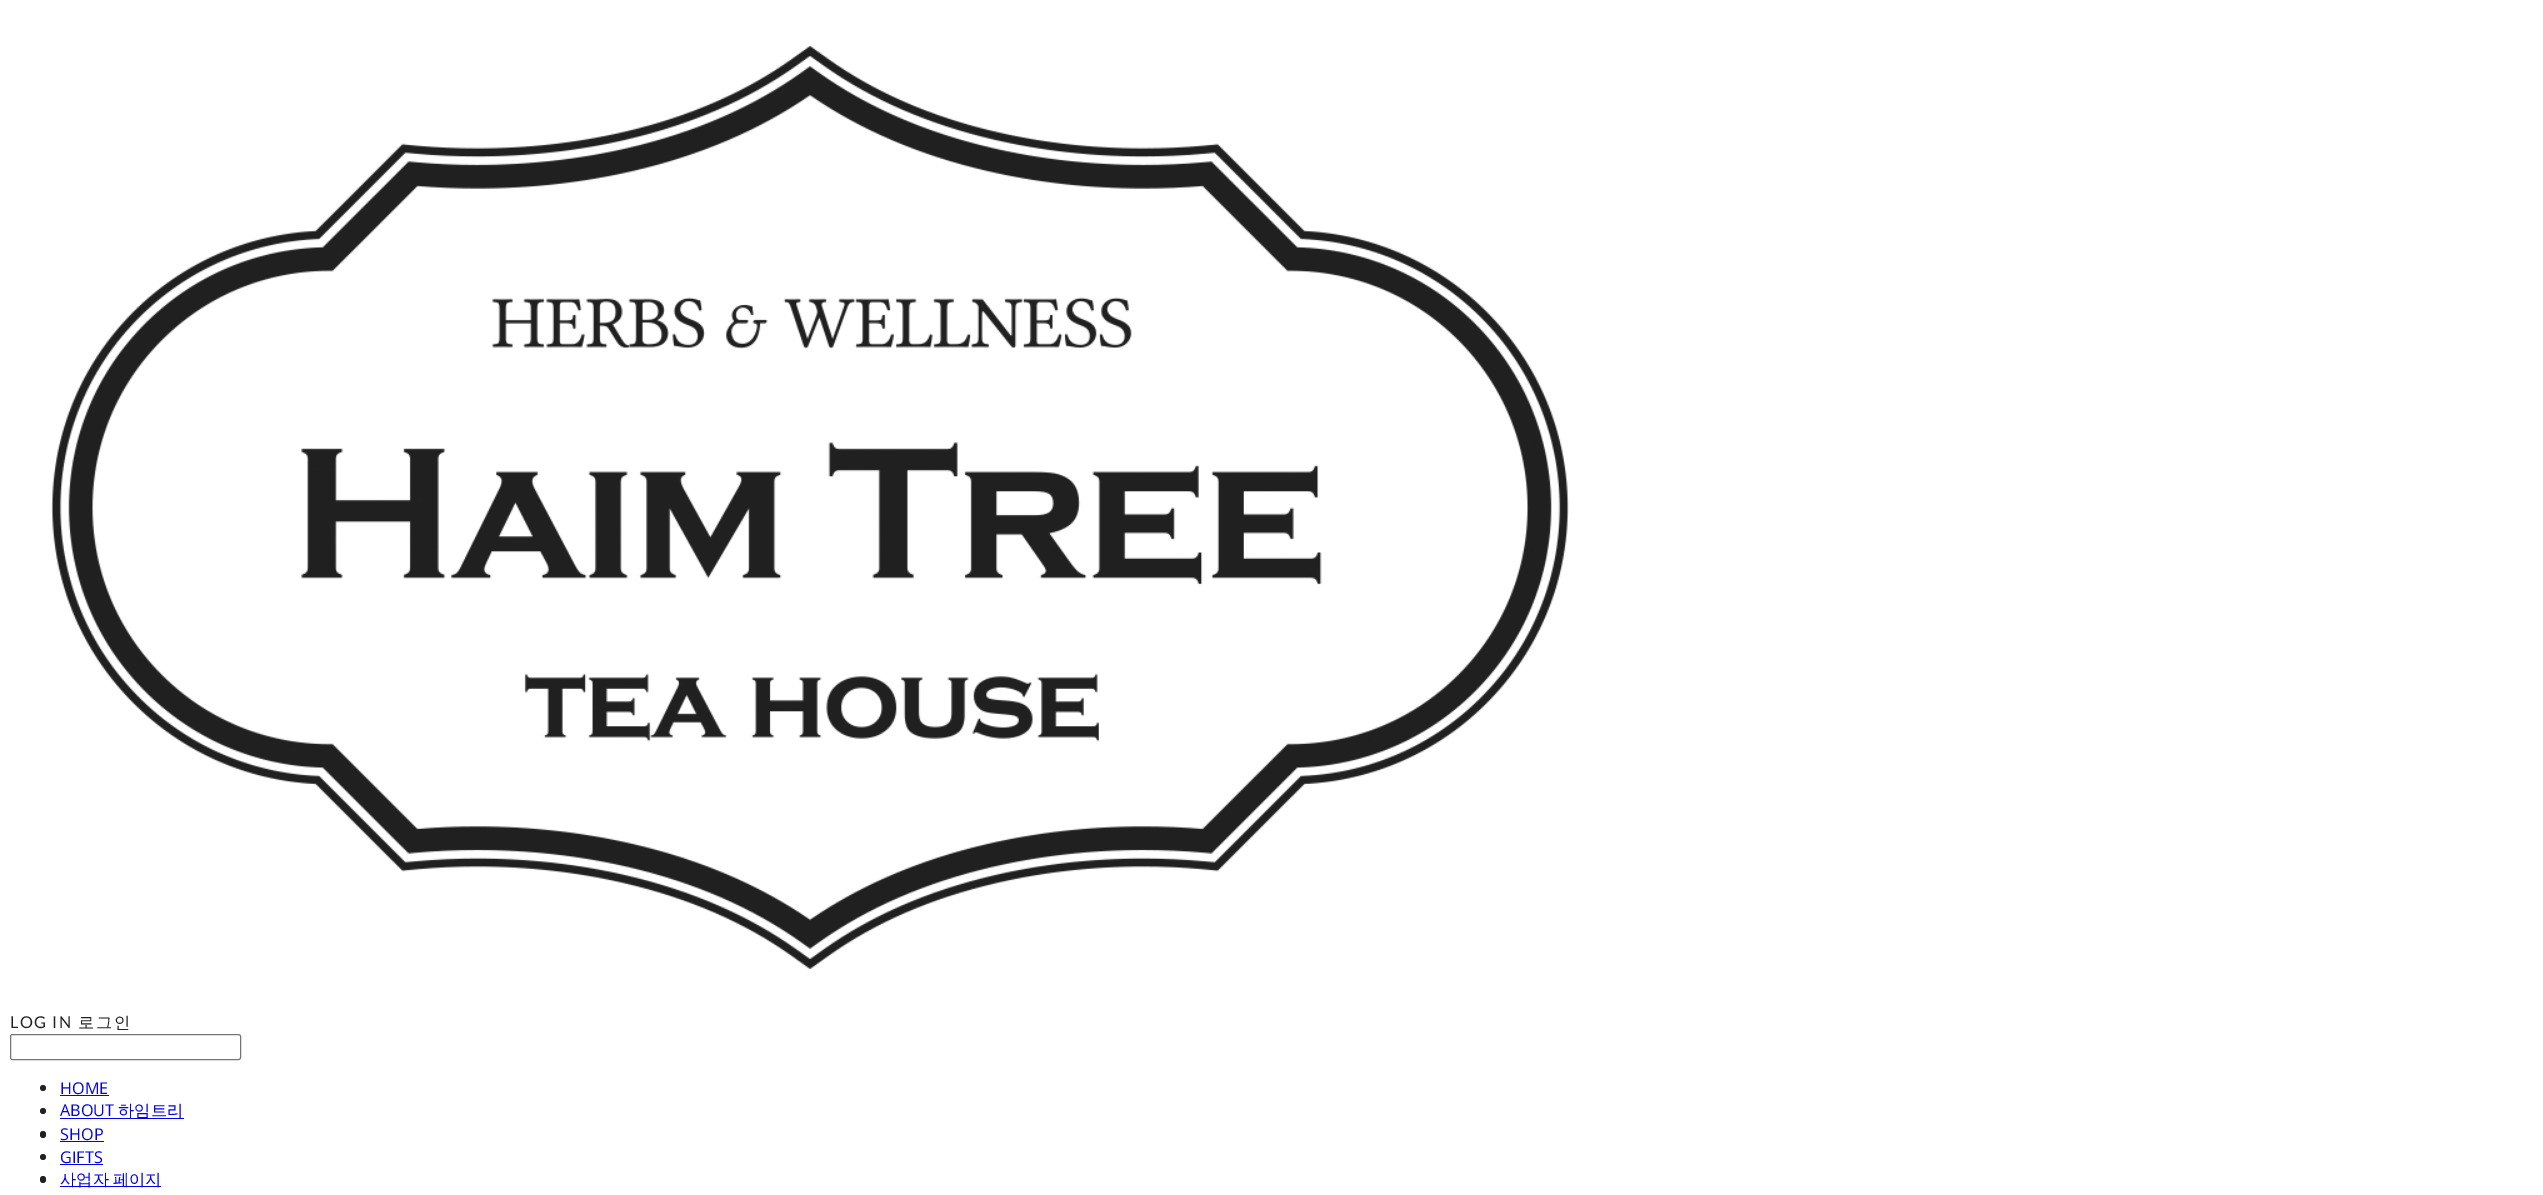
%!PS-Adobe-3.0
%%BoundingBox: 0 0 2543 1195
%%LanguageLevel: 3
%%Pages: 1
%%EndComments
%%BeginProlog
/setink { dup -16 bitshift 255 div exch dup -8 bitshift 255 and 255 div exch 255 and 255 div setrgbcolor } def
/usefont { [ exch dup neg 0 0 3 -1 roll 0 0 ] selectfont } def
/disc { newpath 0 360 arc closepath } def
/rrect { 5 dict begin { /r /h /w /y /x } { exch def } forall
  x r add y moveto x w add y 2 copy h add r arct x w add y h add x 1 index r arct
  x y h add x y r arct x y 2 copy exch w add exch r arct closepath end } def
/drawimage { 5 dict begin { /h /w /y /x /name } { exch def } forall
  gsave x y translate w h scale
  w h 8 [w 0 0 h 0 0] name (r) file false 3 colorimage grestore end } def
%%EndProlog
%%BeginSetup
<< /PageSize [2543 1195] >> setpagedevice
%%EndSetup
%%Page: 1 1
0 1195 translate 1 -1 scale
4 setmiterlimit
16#FFFFFF setink
0 0 2543 1195 rectfill
(img1.raw) 51 46 1518 923 drawimage
/Lato-Regular 16.25 usefont
16#222222 setink
10 1028 moveto 1.5 0 (LOG IN) ashow
/WenQuanYiZenHei-Medium 16.25 usefont
78 1028 moveto 1.5 0 (로그인) ashow
16#767676 setink
10.5 1034.5 230 25 2 rrect stroke
16#222222 setink
43 1088 3 disc fill
/OpenSans-Regular 16.25 usefont
16#0000EE setink
60 1094 moveto (HOME) show
60 1095 49 1 rectfill
16#222222 setink
43 1111 3 disc fill
16#0000EE setink
60 1116 moveto (ABOUT) show
60 1118 124 1 rectfill
/WenQuanYiZenHei-Medium 16.25 usefont
118 1116 moveto (하임트리) show
16#222222 setink
40 1131 6 7 3 rrect fill
/OpenSans-Regular 16.25 usefont
16#0000EE setink
60 1140 moveto (SHOP) show
60 1141 44 1 rectfill
16#222222 setink
43 1157 3 disc fill
16#0000EE setink
60 1163 moveto (GIFTS) show
60 1164 43 1 rectfill
16#222222 setink
40 1176 6 7 3 rrect fill
16#0000EE setink
60 1186 101 1 rectfill
/WenQuanYiZenHei-Medium 16.25 usefont
60 1185 moveto -1 0 32 (사업자 페이지) widthshow
showpage
%%EOF
